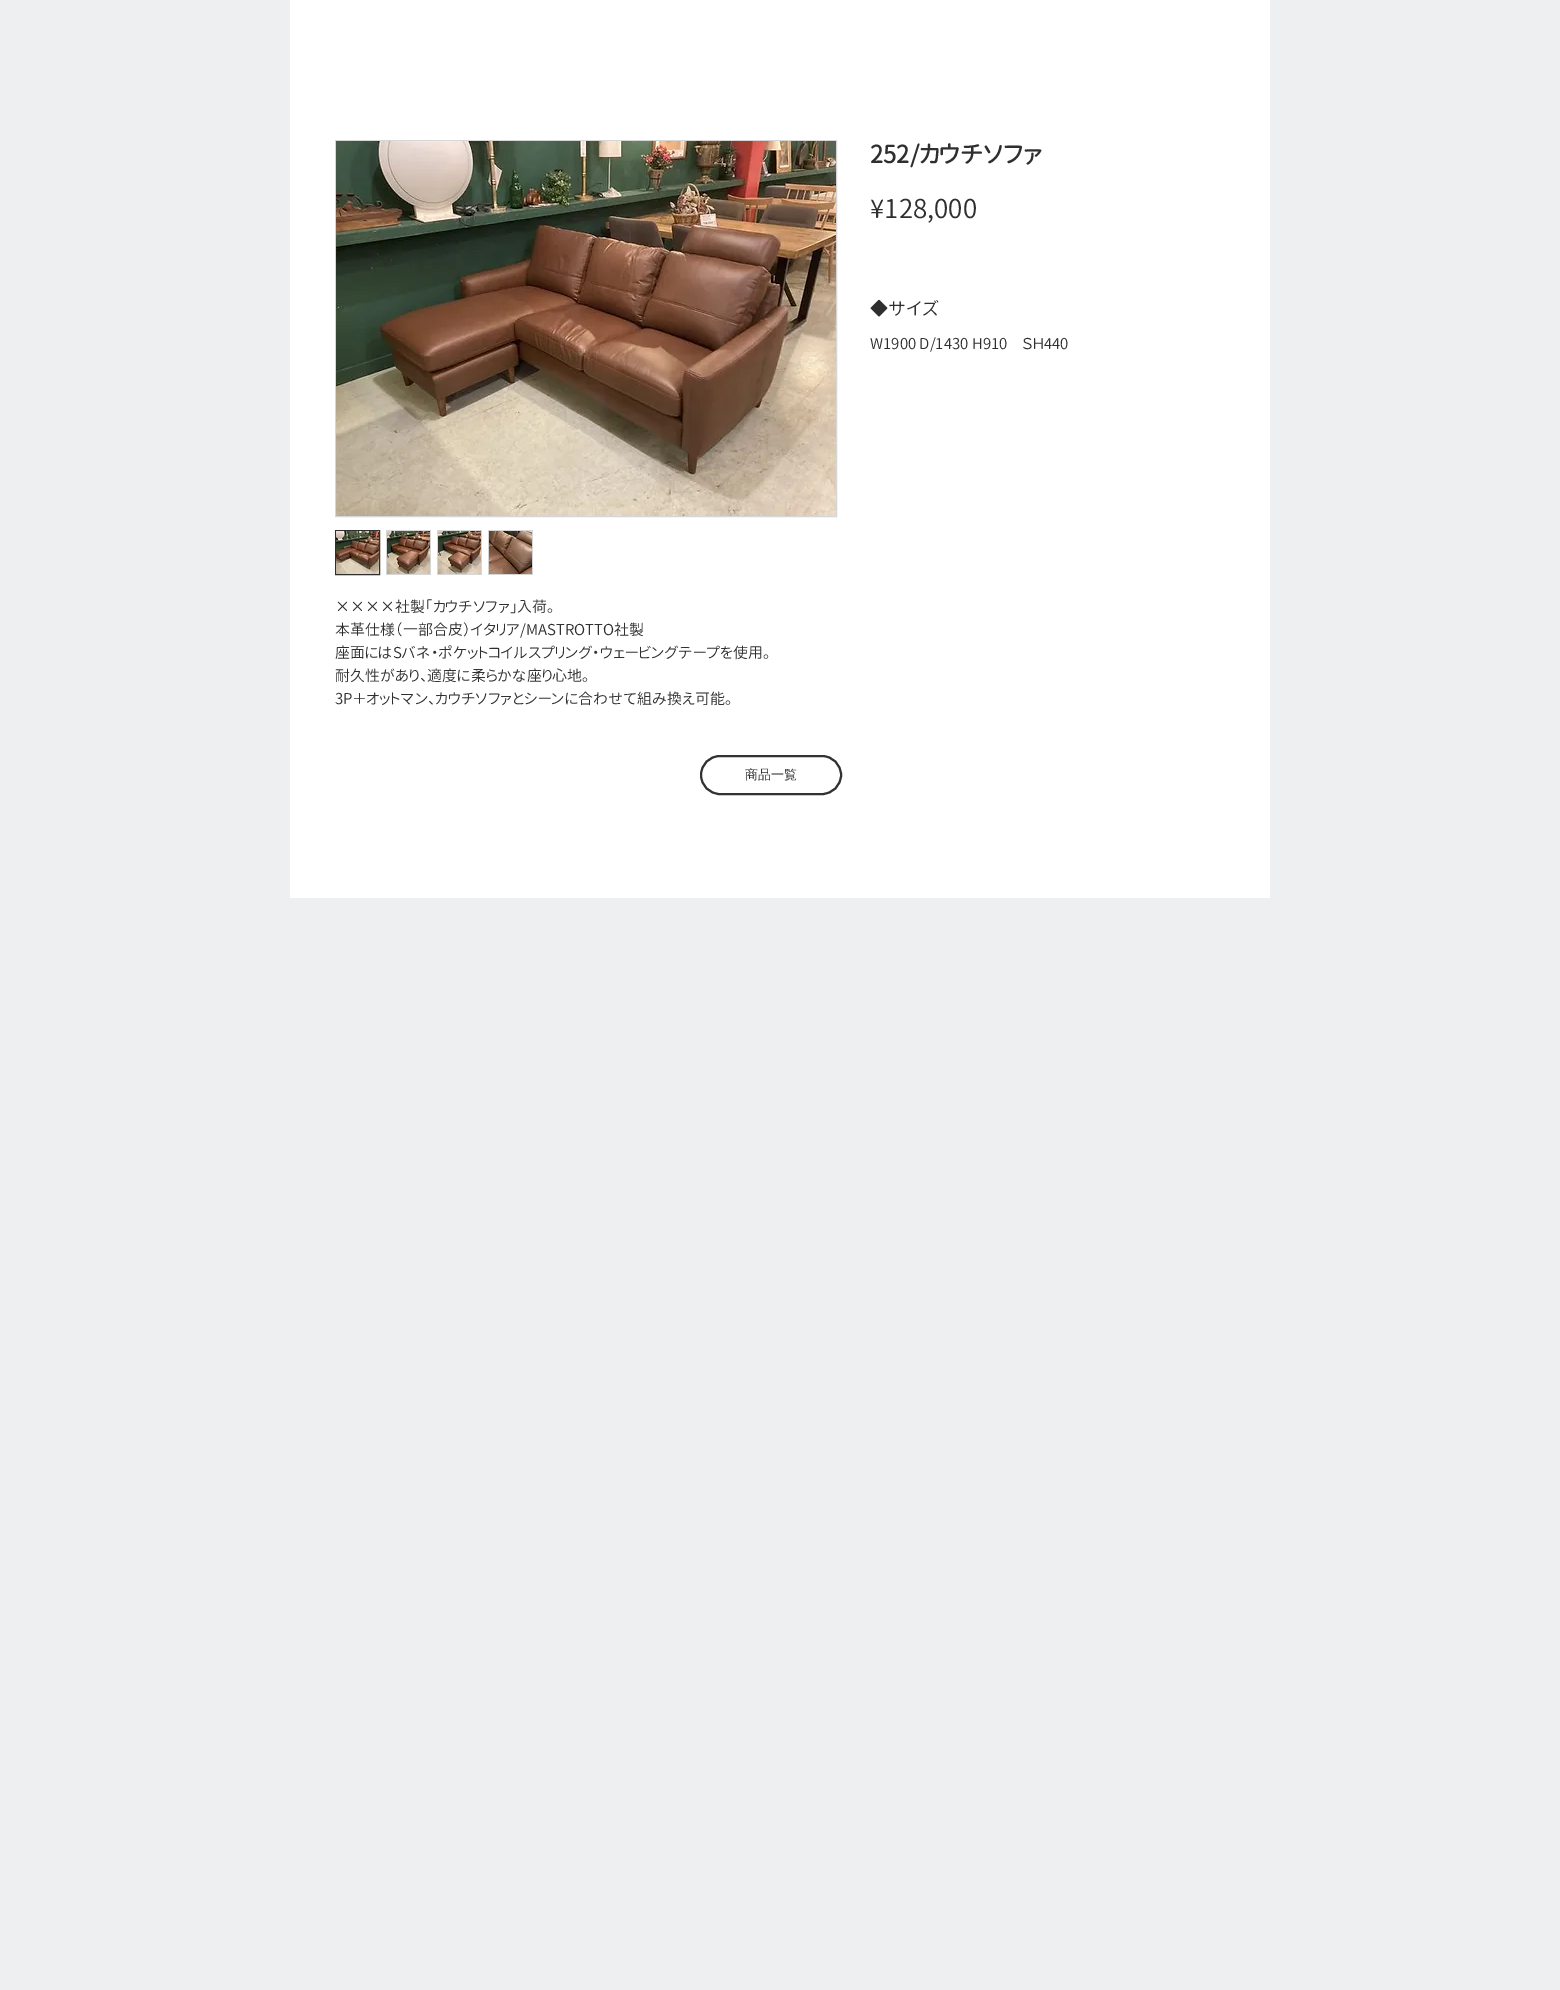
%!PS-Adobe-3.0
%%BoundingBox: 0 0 1560 1990
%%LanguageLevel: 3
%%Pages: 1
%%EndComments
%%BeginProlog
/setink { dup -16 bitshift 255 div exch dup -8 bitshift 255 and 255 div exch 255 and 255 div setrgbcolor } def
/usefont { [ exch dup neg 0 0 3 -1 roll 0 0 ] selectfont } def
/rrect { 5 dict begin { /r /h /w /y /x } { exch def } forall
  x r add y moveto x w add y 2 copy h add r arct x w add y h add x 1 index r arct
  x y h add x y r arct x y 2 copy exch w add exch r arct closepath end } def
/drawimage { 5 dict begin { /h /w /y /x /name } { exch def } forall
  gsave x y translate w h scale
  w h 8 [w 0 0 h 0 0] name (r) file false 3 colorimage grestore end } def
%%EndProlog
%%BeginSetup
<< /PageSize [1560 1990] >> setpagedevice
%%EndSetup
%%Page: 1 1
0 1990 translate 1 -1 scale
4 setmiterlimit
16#EDEFF0 setink
0 0 1560 1990 rectfill
16#FFFFFF setink
290 0 980 898 rectfill
/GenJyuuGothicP-Bold 24 usefont
16#2F2F2F setink
870 163 moveto (252/カウチソファ) show
/GenJyuuGothicP-Light 26 usefont
870 218 moveto (¥128,000) show
/GenJyuuGothicP-Light 18 usefont
870 315 moveto (◆サイズ) show
/GenJyuuGothicP-Light 15 usefont
870 349 moveto (W1900 D/1430 H910　ＳＨ440) show
16#D6D6D6 setink
335.5 140.5 501 376 rectstroke
(img1.raw) 336 141 500 375 drawimage
16#2F2F2F setink
335.5 530.5 44 44 rectstroke
(img2.raw) 336 531 43 43 drawimage
16#D6D6D6 setink
386 530 45 45 rectfill
(img3.raw) 387 531 43 43 drawimage
437 530 45 45 rectfill
(img4.raw) 438 531 43 43 drawimage
488 530 45 45 rectfill
(img5.raw) 489 531 43 43 drawimage
16#2F2F2F setink
[
    [(××××社製「カウチソファ」入荷。) 335 612]
    [(本革仕様（一部合皮）イタリア/MASTROTTO社製) 335 635]
    [(座面にはSバネ・ポケットコイルスプリング・ウェービングテープを使用。) 335 658]
    [(耐久性があり、適度に柔らかな座り心地。) 335 681]
    [(3P＋オットマン、カウチソファとシーンに合わせて組み換え可能。) 335 704]
] { aload pop moveto show } forall
16#323232 setink
2 setlinewidth
701 756 140 38 19 rrect stroke
/WenQuanYiZenHei-Medium 13 usefont
16#2F2F2F setink
745 779 moveto (商品一覧) show
showpage
%%EOF
